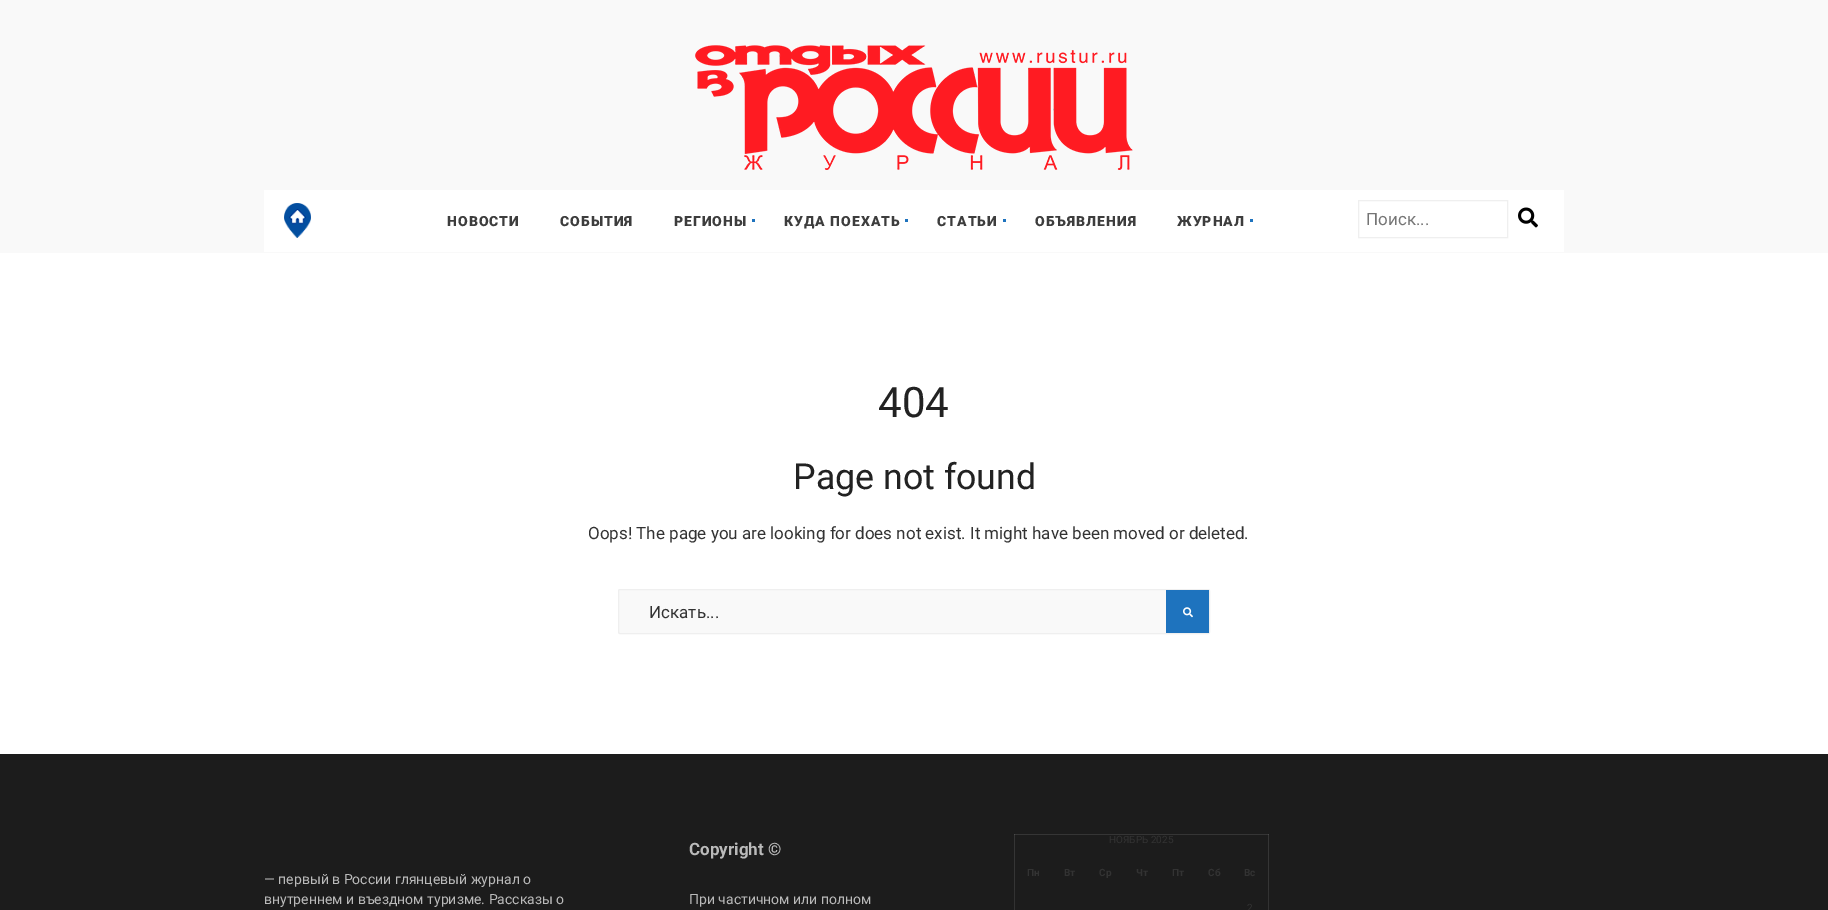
%!PS-Adobe-3.0
%%BoundingBox: 0 0 1828 910
%%LanguageLevel: 3
%%Pages: 1
%%EndComments
%%BeginProlog
/setink { dup -16 bitshift 255 div exch dup -8 bitshift 255 and 255 div exch 255 and 255 div setrgbcolor } def
/usefont { [ exch dup neg 0 0 3 -1 roll 0 0 ] selectfont } def
/rrect { 5 dict begin { /r /h /w /y /x } { exch def } forall
  x r add y moveto x w add y 2 copy h add r arct x w add y h add x 1 index r arct
  x y h add x y r arct x y 2 copy exch w add exch r arct closepath end } def
/drawimage { 5 dict begin { /h /w /y /x /name } { exch def } forall
  gsave x y translate w h scale
  w h 8 [w 0 0 h 0 0] name (r) file false 3 colorimage grestore end } def
%%EndProlog
%%BeginSetup
<< /PageSize [1828 910] >> setpagedevice
%%EndSetup
%%Page: 1 1
0 910 translate 1 -1 scale
4 setmiterlimit
16#FFFFFF setink
0 0 1828 910 rectfill
16#F9F9F9 setink
0 0 1828 253 rectfill
(img1.raw) 695 45 438 125 drawimage
16#FFFFFF setink
264 190 1300 62 rectfill
(img2.raw) 284 203 27 35 drawimage
/Roboto-Black 14 usefont
16#3D3D3D setink
447 226 moveto 1 0 (НОВОСТИ) ashow
560 226 moveto 1 0 (СОБЫТИЯ) ashow
674 226 moveto 1 0 (РЕГИОНЫ) ashow
16#1E73BE setink
752 219 3 3 rectfill
16#3D3D3D setink
784 226 moveto 1 0 (КУДА ПОЕХАТЬ) ashow
16#1E73BE setink
905 219 3 3 rectfill
16#3D3D3D setink
937 226 moveto 1 0 (СТАТЬИ) ashow
16#1E73BE setink
1003 219 3 3 rectfill
16#3D3D3D setink
1035 226 moveto 1 0 (ОБЪЯВЛЕНИЯ) ashow
1177 226 moveto 1 0 (ЖУРНАЛ) ashow
16#1E73BE setink
1250 219 3 3 rectfill
16#EFEFEF setink
1358.5 200.5 149 37 rectstroke
/Roboto-Regular 17 usefont
16#757575 setink
1366 225 moveto (Поиск...) show
(img3.raw) 1518 207 20 21 drawimage
/Roboto-Regular 42 usefont
16#222222 setink
878 417 moveto (404) show
/Roboto-Regular 35.75 usefont
793 489 moveto (Page not found) show
/Roboto-Regular 17 usefont
16#333333 setink
588 539 moveto (Oops! The page you are looking for does not exist. It might have been moved or deleted.) show
16#F9F9F9 setink
618.5 589.5 591 44 1.5 rrect gsave fill grestore
16#EFEFEF setink
stroke
16#333333 setink
649 618 moveto (Искать...) show
16#1E73BE setink
1166 590 43 43 rectfill
(img4.raw) 1183 607 10 11 drawimage
[
    [0 754 1828 156 16#1C1C1C]
    [1014 834 1 56 16#353535]
    [1014 890 1 20 16#323232]
    [1268 834 1 56 16#353535]
    [1268 890 1 20 16#323232]
] { aload pop setink rectfill } forall
/Roboto-Regular 14 usefont
16#BABABA setink
264 884 moveto (— первый в России глянцевый журнал о) show
264 904 moveto (внутреннем и въездном туризме. Рассказы о) show
/Roboto-Bold 17 usefont
689 855 moveto (Copyright ©) show
/Roboto-Regular 14 usefont
689 904 moveto (При частичном или полном) show
[
    [1014 834 255 1 16#353535]
    [1014 834 1 1 16#494949]
    [1268 834 1 1 16#494949]
] { aload pop setink rectfill } forall
/Roboto-Regular 10 usefont
16#333333 setink
1109 843 moveto (НОЯБРЬ 2025) show
/Roboto-Bold 10 usefont
[
    [(Пн) 1027 876]
    [(Вт) 1064 876]
    [(Ср) 1099 876]
    [(Чт) 1136 876]
    [(Пт) 1172 876]
    [(Сб) 1208 876]
    [(Вс) 1244 876]
] { aload pop moveto show } forall
/Roboto-Regular 10 usefont
1247 911 moveto (2) show
showpage
%%EOF
